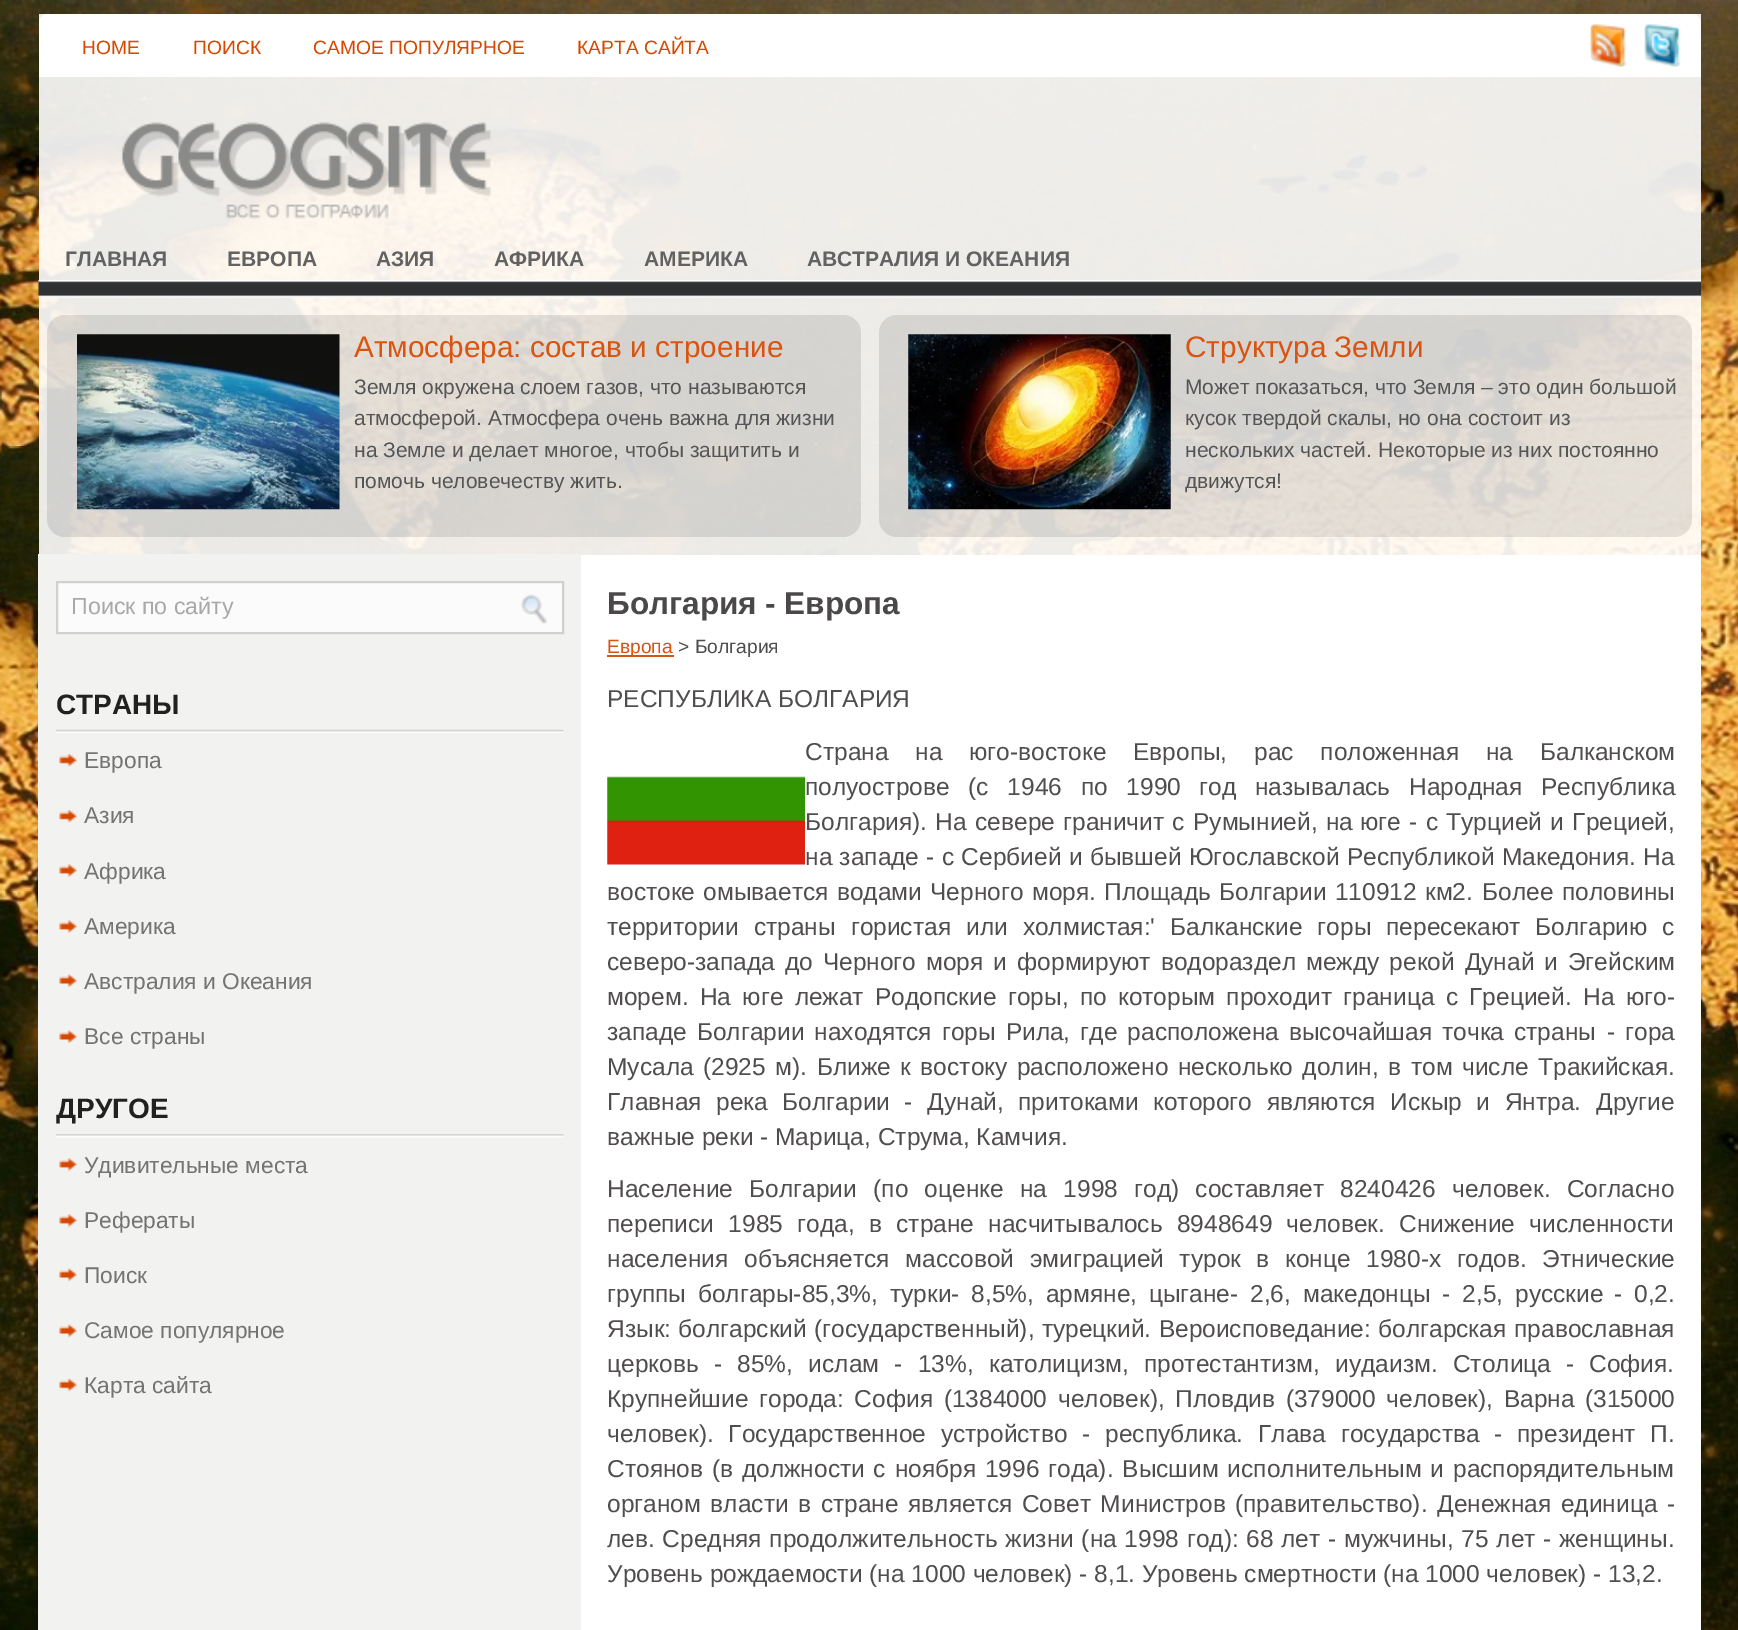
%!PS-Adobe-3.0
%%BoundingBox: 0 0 1738 1630
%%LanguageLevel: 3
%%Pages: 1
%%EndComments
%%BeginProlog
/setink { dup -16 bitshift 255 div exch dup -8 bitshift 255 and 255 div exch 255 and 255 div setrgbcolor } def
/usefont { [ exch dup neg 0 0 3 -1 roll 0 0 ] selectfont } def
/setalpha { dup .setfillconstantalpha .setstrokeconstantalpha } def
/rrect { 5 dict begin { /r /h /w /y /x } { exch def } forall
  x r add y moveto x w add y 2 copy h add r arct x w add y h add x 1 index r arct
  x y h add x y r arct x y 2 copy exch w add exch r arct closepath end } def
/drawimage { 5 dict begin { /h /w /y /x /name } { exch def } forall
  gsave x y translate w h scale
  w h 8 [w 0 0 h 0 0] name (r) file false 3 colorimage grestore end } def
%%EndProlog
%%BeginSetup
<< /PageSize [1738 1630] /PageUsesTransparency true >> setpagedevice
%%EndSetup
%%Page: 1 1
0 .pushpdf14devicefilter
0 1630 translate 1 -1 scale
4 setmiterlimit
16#FFFFFF setink
0 0 1738 1630 rectfill
(img1.raw) 0 0 1738 1630 drawimage
48 14 moveto 1692 14 lineto 1697 14 1701 18 1701 23 curveto 1701 77 lineto 39 77 lineto 39 23 lineto 39 18 43 14 48 14 curveto closepath fill
/LiberationSans-Regular 19.25 usefont
16#D64700 setink
[
    [(HOME) 82 54]
    [(ПОИСК) 193 54]
    [(САМОЕ ПОПУЛЯРНОЕ) 313 54]
    [(КАРТА САЙТА) 577 54]
] { aload pop moveto show } forall
(img2.raw) 1590 24 36 43 drawimage
(img3.raw) 1644 24 37 43 drawimage
(img4.raw) 122 122 369 97 drawimage
(img5.raw) 38 280 1663 18 drawimage
/LiberationSans-Bold 21 usefont
16#636262 setink
[
    [(ГЛАВНАЯ) 65 266]
    [(ЕВРОПА) 227 266]
    [(АЗИЯ) 376 266]
    [(АФРИКА) 494 266]
    [(АМЕРИКА) 644 266]
    [(АВСТРАЛИЯ И ОКЕАНИЯ) 807 266]
] { aload pop moveto show } forall
0.1 setalpha
16#000000 setink
47 315 814 222 18 rrect fill
1 setalpha
(img6.raw) 77 334 263 176 drawimage
/LiberationSans-Regular 29.75 usefont
16#D95311 setink
354 357 moveto (Атмосфера: состав и строение) show
/LiberationSans-Regular 21 usefont
16#555555 setink
[
    [(Земля окружена слоем газов, что называются) 354 394]
    [(атмосферой. Атмосфера очень важна для жизни) 354 425]
    [(на Земле и делает многое, чтобы защитить и) 354 457]
    [(помочь человечеству жить.) 354 488]
] { aload pop moveto show } forall
0.1 setalpha
16#000000 setink
879 315 813 222 18 rrect fill
1 setalpha
(img7.raw) 908 334 263 176 drawimage
/LiberationSans-Regular 29.75 usefont
16#D95311 setink
1185 357 moveto (Структура Земли) show
/LiberationSans-Regular 21 usefont
16#555555 setink
[
    [(Может показаться, что Земля – это один большой) 1185 394]
    [(кусок твердой скалы, но она состоит из) 1185 425]
    [(нескольких частей. Некоторые из них постоянно) 1185 457]
    [(движутся!) 1185 488]
] { aload pop moveto show } forall
16#FFFFFF setink
581 555 1120 1075 rectfill
16#F2F2F0 setink
38 554 543 1076 rectfill
16#FBFBFB setink
57 582 moveto 563 582 lineto 563 633 lineto 57 633 lineto closepath gsave fill grestore
16#CFD0D0 setink
2 setlinewidth
stroke
/LiberationSans-Regular 23.25 usefont
16#A8A8A8 setink
71 614 moveto (Поиск по сайту) show
(img8.raw) 521 594 27 30 drawimage
(img9.raw) 56 729 508 4 drawimage
/LiberationSans-Bold 28 usefont
16#222121 setink
56 714 moveto (СТРАНЫ) show
(img10.raw) 59 754 18 13 drawimage
/LiberationSans-Regular 22.75 usefont
16#747474 setink
84 768 moveto (Европа) show
(img10.raw) 59 810 18 13 drawimage
84 823 moveto (Азия) show
(img11.raw) 59 864 18 13 drawimage
84 879 moveto (Африка) show
(img11.raw) 59 920 18 13 drawimage
84 934 moveto (Америка) show
(img12.raw) 59 974 18 13 drawimage
84 989 moveto (Австралия и Океания) show
(img12.raw) 59 1030 18 13 drawimage
84 1044 moveto (Все страны) show
(img13.raw) 56 1134 508 4 drawimage
/LiberationSans-Bold 28 usefont
16#222121 setink
56 1118 moveto (ДРУГОЕ) show
(img11.raw) 59 1158 18 13 drawimage
/LiberationSans-Regular 22.75 usefont
16#747474 setink
84 1173 moveto (Удивительные места) show
(img11.raw) 59 1214 18 13 drawimage
84 1228 moveto (Рефераты) show
(img12.raw) 59 1268 18 13 drawimage
84 1283 moveto (Поиск) show
(img12.raw) 59 1324 18 13 drawimage
84 1338 moveto (Самое популярное) show
(img14.raw) 59 1379 18 13 drawimage
84 1393 moveto (Карта сайта) show
/LiberationSans-Bold 31.5 usefont
16#4A4848 setink
607 614 moveto (Болгария - Европа) show
16#D95311 setink
607 655 67 2 rectfill
/LiberationSans-Regular 19.25 usefont
607 653 moveto (Европа) show
16#504D4D setink
678 653 moveto (> Болгария) show
/LiberationSans-Regular 24.5 usefont
607 707 moveto (РЕСПУБЛИКА БОЛГАРИЯ) show
805 760 moveto (Страна) show
915 760 moveto 20 0 32 (на юго-востоке Европы, рас положенная на Балканском) widthshow
(img15.raw) 607 776 198 89 drawimage
805 795 moveto 12 0 32 (полуострове \(с 1946 по 1990) widthshow
1199 795 moveto 12 0 32 (год называлась Народная Республика) widthshow
805 830 moveto 1.5 0 32 (Болгария\). На севере граничит с Румынией, на) widthshow
1360 830 moveto 1.5 0 32 (юге - с Турцией и Грецией,) widthshow
805 865 moveto 0.5 0 32 (на западе - с Сербией и бывшей Югославской Республикой) widthshow
1502 865 moveto 1 0 32 (Македония. На) widthshow
607 900 moveto 1.5 0 32 (востоке омывается водами Черного моря. Площадь Болгарии 110912 км2.) widthshow
1482 900 moveto 2 0 32 (Более половины) widthshow
607 935 moveto 8.25 0 32 (территории страны гористая или холмистая:' Балканские горы пересекают) widthshow
1535 935 moveto 8.25 0 32 (Болгарию с) widthshow
607 970 moveto 3.25 0 32 (северо-запада до Черного моря и формируют водораздел между рекой Дунай) widthshow
1544 970 moveto 3.25 0 32 (и Эгейским) widthshow
607 1005 moveto 4.5 0 32 (морем. На юге лежат Родопские горы, по которым проходит граница с Грецией.) widthshow
1583 1005 moveto 4.5 0 32 (На юго-) widthshow
607 1040 moveto 3.25 0 32 (западе Болгарии находятся горы Рила, где расположена высочайшая точка страны) widthshow
1607 1040 moveto 3.25 0 32 (- гора) widthshow
607 1075 moveto 2.75 0 32 (Мусала \(2925 м\). Ближе к востоку расположено несколько долин, в том числе) widthshow
1538 1075 moveto (Тракийская.) show
607 1110 moveto 7.75 0 32 (Главная река Болгарии - Дунай, притоками которого являются Искыр и Янтра.) widthshow
1596 1110 moveto (Другие) show
607 1145 moveto (важные реки - Марица, Струма, Камчия.) show
607 1197 moveto 9.5 0 32 (Население Болгарии \(по оценке на 1998 год\) составляет 8240426 человек. Согласно) widthshow
607 1232 moveto 7.5 0 32 (переписи 1985 года, в стране насчитывалось 8948649 человек. Снижение численности) widthshow
607 1267 moveto 8.75 0 32 (населения объясняется массовой эмиграцией турок в конце 1980-х годов. Этнические) widthshow
607 1302 moveto 5 0 32 (группы болгары-85,3%, турки- 8,5%, армяне, цыгане- 2,6, македонцы - 2,5, русские) widthshow
1614 1302 moveto 5 0 32 (- 0,2.) widthshow
607 1337 moveto 0.5 0 32 (Язык: болгарский \(государственный\), турецкий. Вероисповедание: болгарская) widthshow
1514 1337 moveto (православная) show
607 1372 moveto 8.5 0 32 (церковь - 85%, ислам - 13%, католицизм, протестантизм, иудаизм. Столица) widthshow
1566 1372 moveto 8 0 32 (- София.) widthshow
607 1407 moveto 4 0 32 (Крупнейшие города: София \(1384000 человек\), Пловдив \(379000 человек\), Варна) widthshow
1585 1407 moveto (\(315000) show
607 1442 moveto 8 0 32 (человек\). Государственное устройство - республика. Глава государства - президент) widthshow
1650 1442 moveto (П.) show
607 1477 moveto 2 0 32 (Стоянов \(в должности с ноября 1996 года\). Высшим исполнительным и распорядительным) widthshow
607 1512 moveto 2.75 0 32 (органом власти в стране является Совет Министров \(правительство\). Денежная единица) widthshow
1667 1512 moveto (-) show
607 1547 moveto 0.9 0 32 (лев. Средняя продолжительность жизни \(на 1998 год\): 68 лет - мужчины, 75 лет -) widthshow
1559 1547 moveto (женщины.) show
607 1582 moveto (Уровень рождаемости \(на 1000 человек\) - 8,1. Уровень смертности \(на 1000 человек\) - 13,2.) show
.poppdf14devicefilter showpage
%%EOF
